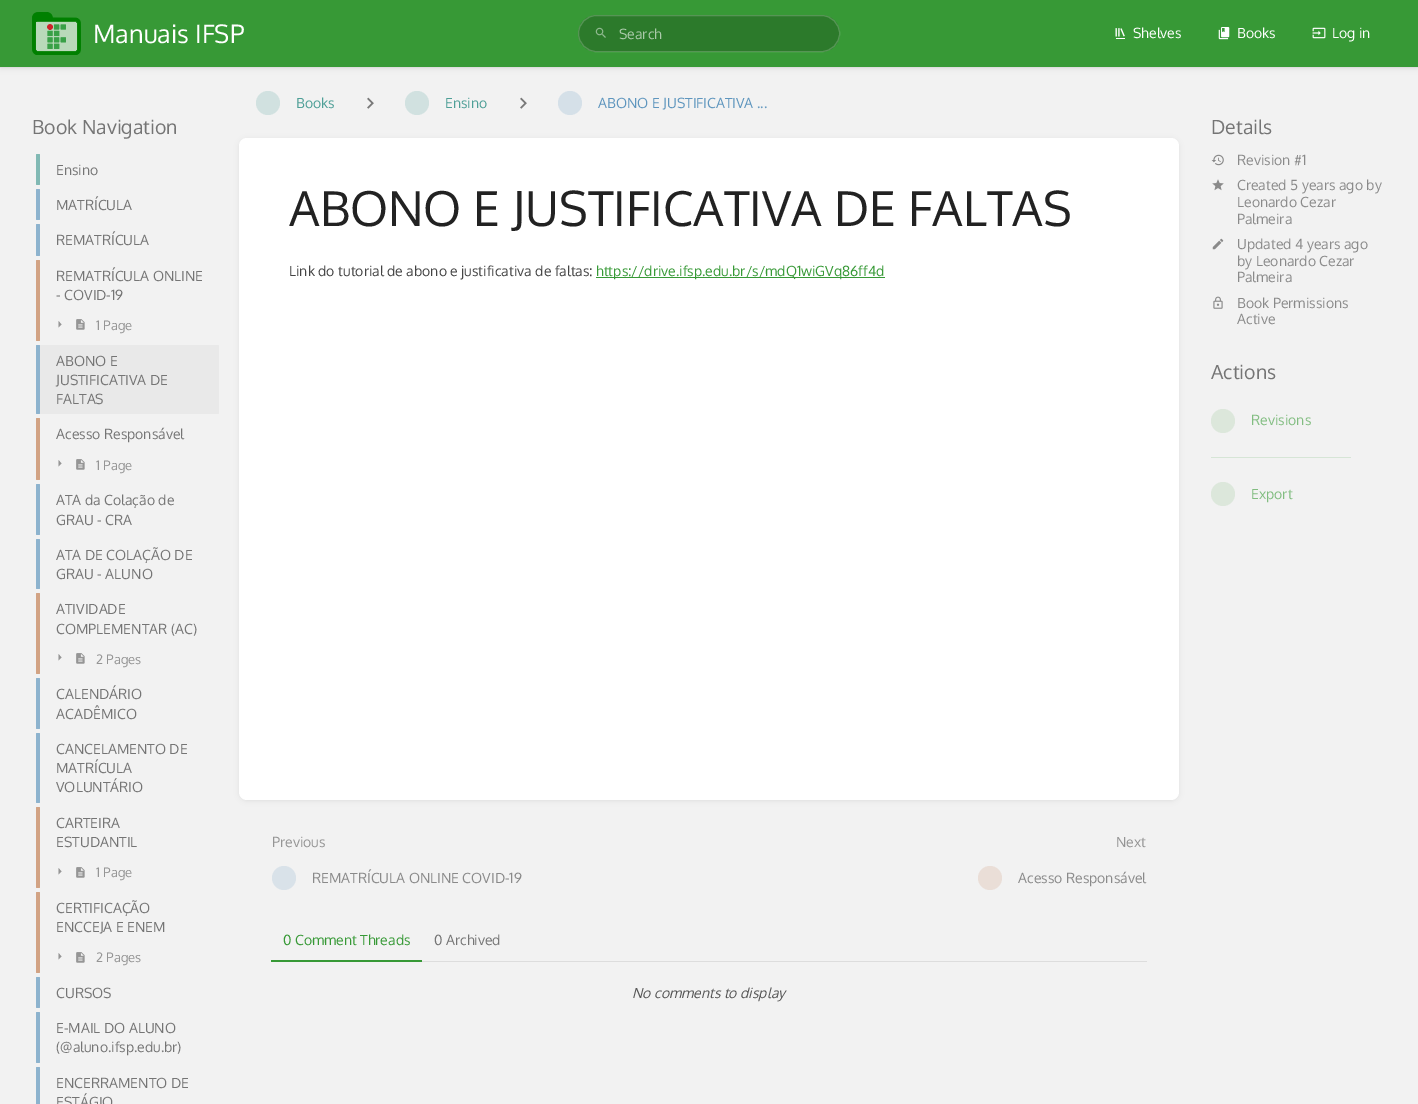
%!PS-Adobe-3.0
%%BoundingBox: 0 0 1418 1104
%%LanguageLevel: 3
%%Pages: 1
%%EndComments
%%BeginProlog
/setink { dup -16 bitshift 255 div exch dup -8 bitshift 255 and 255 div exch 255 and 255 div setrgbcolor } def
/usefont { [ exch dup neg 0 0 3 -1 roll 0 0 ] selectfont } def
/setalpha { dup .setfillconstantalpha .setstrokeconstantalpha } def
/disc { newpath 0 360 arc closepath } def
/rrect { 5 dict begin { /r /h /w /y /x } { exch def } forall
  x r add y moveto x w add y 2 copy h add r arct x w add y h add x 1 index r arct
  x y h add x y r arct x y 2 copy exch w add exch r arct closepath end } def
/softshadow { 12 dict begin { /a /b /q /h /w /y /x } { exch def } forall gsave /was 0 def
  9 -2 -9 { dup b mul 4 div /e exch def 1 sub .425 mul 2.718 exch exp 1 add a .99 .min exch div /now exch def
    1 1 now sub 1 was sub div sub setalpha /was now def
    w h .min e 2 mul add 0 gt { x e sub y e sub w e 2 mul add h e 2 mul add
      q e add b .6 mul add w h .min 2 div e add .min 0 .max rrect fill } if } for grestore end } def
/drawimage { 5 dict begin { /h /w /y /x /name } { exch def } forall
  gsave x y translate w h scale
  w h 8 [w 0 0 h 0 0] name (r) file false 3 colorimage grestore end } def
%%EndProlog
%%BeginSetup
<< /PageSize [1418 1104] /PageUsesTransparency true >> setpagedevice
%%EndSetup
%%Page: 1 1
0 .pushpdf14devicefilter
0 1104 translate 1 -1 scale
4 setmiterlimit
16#F2F2F2 setink
0 0 1418 1104 rectfill
16#000000 setink
1 2 1416 66 0 3 0.1 softshadow
16#379936 setink
0 0 1418 67 rectfill
16#DDDDDD setink
0 67 1418 1 rectfill
(img1.raw) 32 12 49 43 drawimage
/Oxygen-Regular 25.25 usefont
16#FFFFFF setink
93 43 moveto (Manuais IFSP) show
16#2C7A2B setink
578 15 262 37 18.5 rrect fill
0.2 setalpha
16#FFFFFF setink
578.5 15.5 261 36 18 rrect stroke
1 setalpha
(img2.raw) 595 27 11 11 drawimage
/Oxygen-Regular 14 usefont
16#ABCAAA setink
619 39 moveto (Search) show
(img3.raw) 1115 28 10 11 drawimage
16#FFFFFF setink
1133 38 moveto (Shelves) show
(img4.raw) 1218 27 12 13 drawimage
1237 38 moveto (Books) show
(img5.raw) 1312 27 14 12 drawimage
1332 38 moveto (Log in) show
16#D1E1E0 setink
268 103 12 disc fill
16#4E9F97 setink
296 108 moveto (Books) show
(img6.raw) 367 97 7 12 drawimage
16#D1E1E0 setink
417 103 12 disc fill
16#4E9F97 setink
445 108 moveto (Ensino) show
(img6.raw) 520 97 7 12 drawimage
16#D5E0E8 setink
570 103 12 disc fill
16#5F96BE setink
598 108 moveto (ABONO E JUSTIFICATIVA ...) show
16#000000 setink
240 140 938 660 7 3 0.1 softshadow
16#FFFFFF setink
239 138 940 662 8 rrect fill
/Oxygen-Regular 48 usefont
16#222222 setink
289 226 moveto (ABONO E JUSTIFICATIVA DE FALTAS) show
/Oxygen-Regular 14 usefont
16#444444 setink
289 276 moveto (Link do tutorial de abono e justificativa de faltas:) show
16#379936 setink
596 277 289 1 rectfill
596 276 moveto (https://drive.ifsp.edu.br/s/mdQ1wiGVq86ff4d) show
16#959595 setink
272 847 moveto (Previous) show
16#D9E2E9 setink
284 878 12 disc fill
16#8A8A8A setink
312 883 moveto (REMATRÍCULA ONLINE COVID-19) show
16#959595 setink
1116 847 moveto (Next) show
16#EADED7 setink
990 878 12 disc fill
16#8A8A8A setink
1018 883 moveto (Acesso Responsável) show
16#DDDDDD setink
422 961 725 1 rectfill
16#379936 setink
271 960 151 2 rectfill
283 945 moveto (0 Comment Threads) show
16#757575 setink
434 945 moveto (0 Archived) show
/Oxygen-Italic 14 usefont
16#575757 setink
632 998 moveto (No comments to display) show
/Oxygen-Regular 19.5 usefont
16#757575 setink
32 134 moveto (Book Navigation) show
16#81B9B4 setink
36 154 4 31 1 rrect fill
/Oxygen-Regular 14 usefont
16#757575 setink
56 175 moveto (Ensino) show
16#8DB3CE setink
36 189 4 31 1 rrect fill
16#757575 setink
56 210 moveto (MATRÍCULA) show
16#8DB3CE setink
36 224 4 32 1 rrect fill
16#757575 setink
56 245 moveto (REMATRÍCULA) show
16#D2A384 setink
36 260 4 50 1 rrect fill
16#757575 setink
56 281 moveto (REMATRÍCULA ONLINE) show
56 300 moveto (- COVID-19) show
16#D2A384 setink
36 308 4 33 1 rrect fill
16#959595 setink
58.5 327.5 moveto 61.5 324.5 lineto 58.5 321 lineto closepath fill
(img7.raw) 76 319 9 11 drawimage
/Oxygen-Regular 13 usefont
96 330 moveto (1 Page) show
16#E9E9E9 setink
36 345 moveto 216 345 lineto 218 345 219 345 219 346 curveto 219 413 lineto 219 414 218 414 216 414 curveto 36 414 lineto closepath fill
16#8DB3CE setink
36 345 4 69 1 rrect fill
/Oxygen-Regular 14 usefont
16#757575 setink
[
    [(ABONO E) 56 366]
    [(JUSTIFICATIVA DE) 56 385]
    [(FALTAS) 56 404]
] { aload pop moveto show } forall
16#D2A384 setink
36 418 4 32 1 rrect fill
16#757575 setink
56 439 moveto (Acesso Responsável) show
16#D2A384 setink
36 448 4 32 1 rrect fill
16#959595 setink
58.5 466.5 moveto 61.5 463.5 lineto 58.5 460 lineto closepath fill
(img7.raw) 76 459 9 11 drawimage
/Oxygen-Regular 13 usefont
96 470 moveto (1 Page) show
16#8DB3CE setink
36 484 4 51 1 rrect fill
/Oxygen-Regular 14 usefont
16#757575 setink
56 505 moveto (ATA da Colação de) show
56 525 moveto (GRAU - CRA) show
16#8DB3CE setink
36 539 4 50 1 rrect fill
16#757575 setink
56 560 moveto (ATA DE COLAÇÃO DE) show
56 579 moveto (GRAU - ALUNO) show
16#D2A384 setink
36 593 4 51 1 rrect fill
16#757575 setink
56 614 moveto (ATIVIDADE) show
56 634 moveto (COMPLEMENTAR \(AC\)) show
16#D2A384 setink
36 642 4 32 1 rrect fill
16#959595 setink
58.5 660.5 moveto 61.5 657.5 lineto 58.5 654 lineto closepath fill
(img7.raw) 76 653 9 11 drawimage
/Oxygen-Regular 13 usefont
96 664 moveto (2 Pages) show
16#8DB3CE setink
36 678 4 51 1 rrect fill
/Oxygen-Regular 14 usefont
16#757575 setink
56 699 moveto (CALENDÁRIO) show
56 719 moveto (ACADÊMICO) show
16#8DB3CE setink
36 733 4 70 1 rrect fill
16#757575 setink
[
    [(CANCELAMENTO DE) 56 754]
    [(MATRÍCULA) 56 773]
    [(VOLUNTÁRIO) 56 792]
] { aload pop moveto show } forall
16#D2A384 setink
36 807 4 50 1 rrect fill
16#757575 setink
56 828 moveto (CARTEIRA) show
56 847 moveto (ESTUDANTIL) show
16#D2A384 setink
36 855 4 33 1 rrect fill
16#959595 setink
58.5 874.5 moveto 61.5 871.5 lineto 58.5 868 lineto closepath fill
(img7.raw) 76 867 9 11 drawimage
/Oxygen-Regular 13 usefont
96 877 moveto (1 Page) show
16#D2A384 setink
36 892 4 50 1 rrect fill
/Oxygen-Regular 14 usefont
16#757575 setink
56 913 moveto (CERTIFICAÇÃO) show
56 932 moveto (ENCCEJA E ENEM) show
16#D2A384 setink
36 940 4 33 1 rrect fill
16#959595 setink
58.5 959.5 moveto 61.5 956.5 lineto 58.5 953 lineto closepath fill
(img7.raw) 76 952 9 11 drawimage
/Oxygen-Regular 13 usefont
96 962 moveto (2 Pages) show
16#8DB3CE setink
36 977 4 31 1 rrect fill
/Oxygen-Regular 14 usefont
16#757575 setink
56 998 moveto (CURSOS) show
16#8DB3CE setink
36 1012 4 51 1 rrect fill
16#757575 setink
56 1033 moveto (E-MAIL DO ALUNO) show
56 1052 moveto (\(@aluno.ifsp.edu.br\)) show
16#8DB3CE setink
36 1067 4 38 1 rrect fill
16#757575 setink
56 1088 moveto (ENCERRAMENTO DE) show
56 1107 moveto (ESTÁGIO) show
/Oxygen-Regular 19.5 usefont
1211 134 moveto (Details) show
(img8.raw) 1211 154 13 12 drawimage
/Oxygen-Regular 14 usefont
16#8A8A8A setink
1237 165 moveto (Revision #1) show
(img9.raw) 1212 179 12 12 drawimage
[
    [(Created 5 years ago by) 1237 190]
    [(Leonardo Cezar) 1237 207]
    [(Palmeira) 1237 224]
] { aload pop moveto show } forall
(img10.raw) 1212 238 12 12 drawimage
[
    [(Updated 4 years ago) 1237 249]
    [(by Leonardo Cezar) 1237 266]
    [(Palmeira) 1237 282]
] { aload pop moveto show } forall
(img11.raw) 1213 296 10 13 drawimage
1237 308 moveto (Book Permissions) show
1237 324 moveto (Active) show
/Oxygen-Regular 19.5 usefont
16#757575 setink
1211 379 moveto (Actions) show
16#DCE7DB setink
1223 421 12 disc fill
/Oxygen-Regular 14 usefont
16#82BD81 setink
1251 425 moveto (Revisions) show
16#D6E5D6 setink
1211 457 140 1 rectfill
16#DCE7DB setink
1223 494 12 disc fill
16#82BD81 setink
1251 499 moveto (Export) show
.poppdf14devicefilter showpage
%%EOF
